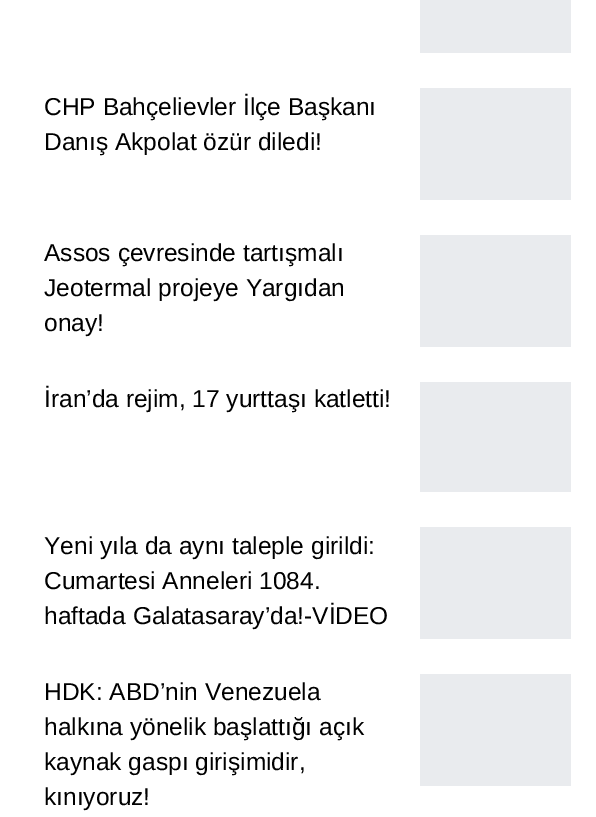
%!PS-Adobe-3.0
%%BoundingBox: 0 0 596 817
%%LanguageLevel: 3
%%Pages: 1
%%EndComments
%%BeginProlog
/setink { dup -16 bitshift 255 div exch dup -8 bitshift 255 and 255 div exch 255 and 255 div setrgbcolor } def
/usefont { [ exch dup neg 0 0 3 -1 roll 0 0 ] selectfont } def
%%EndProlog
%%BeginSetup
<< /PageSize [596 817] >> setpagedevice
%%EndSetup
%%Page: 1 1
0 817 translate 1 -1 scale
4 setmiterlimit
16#FFFFFF setink
0 0 596 817 rectfill
16#E9EBEE setink
420 0 151 53 rectfill
/LiberationSans-Regular 24.5 usefont
16#000000 setink
44 115 moveto (CHP Bahçelievler İlçe Başkanı) show
44 150 moveto (Danış Akpolat özür diledi!) show
16#E9EBEE setink
420 88 151 112 rectfill
16#000000 setink
[
    [(Assos çevresinde tartışmalı) 44 261]
    [(Jeotermal projeye Yargıdan) 44 296]
    [(onay!) 44 331]
] { aload pop moveto show } forall
16#E9EBEE setink
420 235 151 112 rectfill
16#000000 setink
44 407 moveto (İran’da rejim, 17 yurttaşı katletti!) show
16#E9EBEE setink
420 382 151 110 rectfill
16#000000 setink
[
    [(Yeni yıla da aynı taleple girildi:) 44 554]
    [(Cumartesi Anneleri 1084.) 44 589]
    [(haftada Galatasaray’da!-VİDEO) 44 624]
] { aload pop moveto show } forall
16#E9EBEE setink
420 527 151 112 rectfill
16#000000 setink
[
    [(HDK: ABD’nin Venezuela) 44 700]
    [(halkına yönelik başlattığı açık) 44 735]
    [(kaynak gaspı girişimidir,) 44 770]
    [(kınıyoruz!) 44 805]
] { aload pop moveto show } forall
16#E9EBEE setink
420 674 151 112 rectfill
showpage
%%EOF
